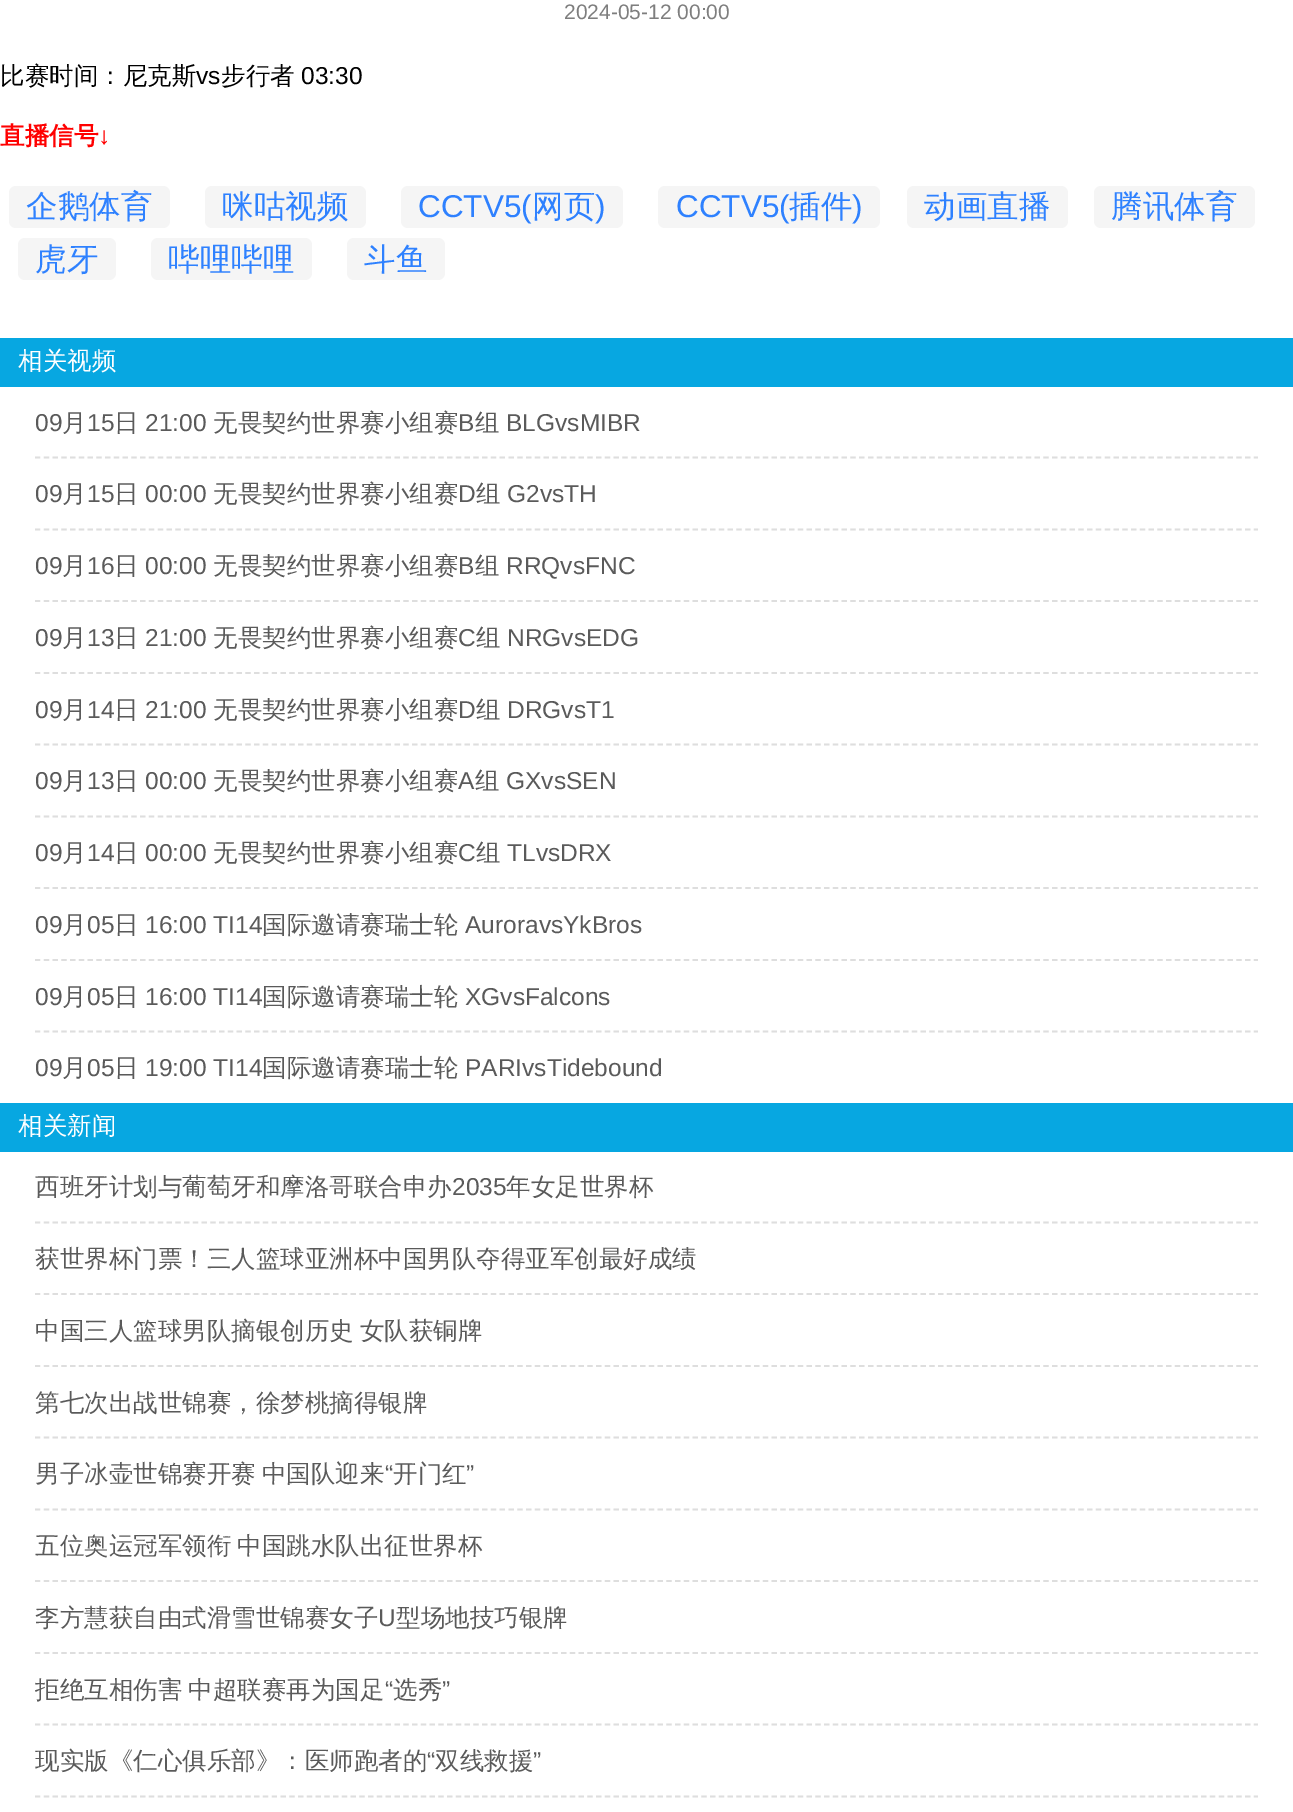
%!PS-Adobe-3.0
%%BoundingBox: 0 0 1293 1812
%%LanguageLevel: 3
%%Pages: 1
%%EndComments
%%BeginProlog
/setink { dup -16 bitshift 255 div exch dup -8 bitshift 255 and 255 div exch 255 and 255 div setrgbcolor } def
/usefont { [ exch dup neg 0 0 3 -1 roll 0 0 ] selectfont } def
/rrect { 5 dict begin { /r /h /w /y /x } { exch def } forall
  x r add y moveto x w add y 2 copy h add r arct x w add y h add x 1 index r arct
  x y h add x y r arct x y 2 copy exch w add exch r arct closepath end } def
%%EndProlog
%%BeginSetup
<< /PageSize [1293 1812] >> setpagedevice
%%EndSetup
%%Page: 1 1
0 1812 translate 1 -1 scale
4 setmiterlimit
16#FFFFFF setink
0 0 1293 1812 rectfill
/LiberationSans-Regular 21 usefont
16#7E7E7E setink
564 19 moveto (2024-05-12 00:00) show
/WenQuanYiZenHei-Medium 24.5 usefont
16#000000 setink
0 84 moveto (比赛时间：尼克斯) show
/LiberationSans-Regular 24.5 usefont
196 84 moveto (vs) show
/WenQuanYiZenHei-Medium 24.5 usefont
221 84 moveto (步行者) show
/LiberationSans-Regular 24.5 usefont
301 84 moveto (03:30) show
/WenQuanYiZenHei-Bold 24.5 usefont
16#FF0000 setink
0 144 moveto (直播信号) show
/LiberationSans-Bold 24.5 usefont
98 144 moveto (↓) show
16#F5F5F5 setink
9 186 161 42 7 rrect fill
/WenQuanYiZenHei-Medium 31.5 usefont
16#2E81FF setink
26 217 moveto (企鹅体育) show
16#F5F5F5 setink
205 186 161 42 7 rrect fill
16#2E81FF setink
222 217 moveto (咪咕视频) show
16#F5F5F5 setink
401 186 222 42 7 rrect fill
/LiberationSans-Regular 31.5 usefont
16#2E81FF setink
418 217 moveto (CCTV5\() show
/WenQuanYiZenHei-Medium 31.5 usefont
532 217 moveto (网页) show
/LiberationSans-Regular 31.5 usefont
595 217 moveto (\)) show
16#F5F5F5 setink
658 186 222 42 7 rrect fill
16#2E81FF setink
676 217 moveto (CCTV5\() show
/WenQuanYiZenHei-Medium 31.5 usefont
789 217 moveto (插件) show
/LiberationSans-Regular 31.5 usefont
852 217 moveto (\)) show
16#F5F5F5 setink
907 186 161 42 7 rrect fill
/WenQuanYiZenHei-Medium 31.5 usefont
16#2E81FF setink
924 217 moveto (动画直播) show
16#F5F5F5 setink
1094 186 161 42 7 rrect fill
16#2E81FF setink
1111 217 moveto (腾讯体育) show
16#F5F5F5 setink
18 238 98 42 7 rrect fill
16#2E81FF setink
35 270 moveto (虎牙) show
16#F5F5F5 setink
151 238 161 42 7 rrect fill
16#2E81FF setink
168 270 moveto (哔哩哔哩) show
16#F5F5F5 setink
347 238 98 42 7 rrect fill
16#2E81FF setink
364 270 moveto (斗鱼) show
16#07A7E1 setink
0 338 1293 49 rectfill
/WenQuanYiZenHei-Medium 24.5 usefont
16#FFFFFF setink
18 369 moveto (相关视频) show
16#DEDEDE setink
1.8 setlinewidth
[5.25 3.52] 0 setdash
35 457.5 moveto 1258 457.5 lineto stroke
/LiberationSans-Regular 24.5 usefont
16#5A5A5A setink
35 431 moveto (09) show
/WenQuanYiZenHei-Medium 24.5 usefont
62 431 moveto (月) show
/LiberationSans-Regular 24.5 usefont
87 431 moveto (15) show
/WenQuanYiZenHei-Medium 24.5 usefont
114 431 moveto (日) show
/LiberationSans-Regular 24.5 usefont
145 431 moveto (21:00) show
/WenQuanYiZenHei-Medium 24.5 usefont
213 431 moveto (无畏契约世界赛小组赛) show
/LiberationSans-Regular 24.5 usefont
458 431 moveto (B) show
/WenQuanYiZenHei-Medium 24.5 usefont
475 431 moveto (组) show
/LiberationSans-Regular 24.5 usefont
506 431 moveto (BLGvsMIBR) show
16#DEDEDE setink
35 529.5 moveto 1258 529.5 lineto stroke
16#5A5A5A setink
35 502 moveto (09) show
/WenQuanYiZenHei-Medium 24.5 usefont
62 502 moveto (月) show
/LiberationSans-Regular 24.5 usefont
87 502 moveto (15) show
/WenQuanYiZenHei-Medium 24.5 usefont
114 502 moveto (日) show
/LiberationSans-Regular 24.5 usefont
145 502 moveto (00:00) show
/WenQuanYiZenHei-Medium 24.5 usefont
213 502 moveto (无畏契约世界赛小组赛) show
/LiberationSans-Regular 24.5 usefont
458 502 moveto (D) show
/WenQuanYiZenHei-Medium 24.5 usefont
476 502 moveto (组) show
/LiberationSans-Regular 24.5 usefont
507 502 moveto (G2vsTH) show
16#DEDEDE setink
35 601 moveto 1258 601 lineto stroke
16#5A5A5A setink
35 574 moveto (09) show
/WenQuanYiZenHei-Medium 24.5 usefont
62 574 moveto (月) show
/LiberationSans-Regular 24.5 usefont
87 574 moveto (16) show
/WenQuanYiZenHei-Medium 24.5 usefont
114 574 moveto (日) show
/LiberationSans-Regular 24.5 usefont
145 574 moveto (00:00) show
/WenQuanYiZenHei-Medium 24.5 usefont
213 574 moveto (无畏契约世界赛小组赛) show
/LiberationSans-Regular 24.5 usefont
458 574 moveto (B) show
/WenQuanYiZenHei-Medium 24.5 usefont
475 574 moveto (组) show
/LiberationSans-Regular 24.5 usefont
506 574 moveto (RRQvsFNC) show
16#DEDEDE setink
35 673 moveto 1258 673 lineto stroke
16#5A5A5A setink
35 646 moveto (09) show
/WenQuanYiZenHei-Medium 24.5 usefont
62 646 moveto (月) show
/LiberationSans-Regular 24.5 usefont
87 646 moveto (13) show
/WenQuanYiZenHei-Medium 24.5 usefont
114 646 moveto (日) show
/LiberationSans-Regular 24.5 usefont
145 646 moveto (21:00) show
/WenQuanYiZenHei-Medium 24.5 usefont
213 646 moveto (无畏契约世界赛小组赛) show
/LiberationSans-Regular 24.5 usefont
458 646 moveto (C) show
/WenQuanYiZenHei-Medium 24.5 usefont
476 646 moveto (组) show
/LiberationSans-Regular 24.5 usefont
507 646 moveto (NRGvsEDG) show
16#DEDEDE setink
35 744.5 moveto 1258 744.5 lineto stroke
16#5A5A5A setink
35 718 moveto (09) show
/WenQuanYiZenHei-Medium 24.5 usefont
62 718 moveto (月) show
/LiberationSans-Regular 24.5 usefont
87 718 moveto (14) show
/WenQuanYiZenHei-Medium 24.5 usefont
114 718 moveto (日) show
/LiberationSans-Regular 24.5 usefont
145 718 moveto (21:00) show
/WenQuanYiZenHei-Medium 24.5 usefont
213 718 moveto (无畏契约世界赛小组赛) show
/LiberationSans-Regular 24.5 usefont
458 718 moveto (D) show
/WenQuanYiZenHei-Medium 24.5 usefont
476 718 moveto (组) show
/LiberationSans-Regular 24.5 usefont
507 718 moveto (DRGvsT1) show
16#DEDEDE setink
35 816.5 moveto 1258 816.5 lineto stroke
16#5A5A5A setink
35 789 moveto (09) show
/WenQuanYiZenHei-Medium 24.5 usefont
62 789 moveto (月) show
/LiberationSans-Regular 24.5 usefont
87 789 moveto (13) show
/WenQuanYiZenHei-Medium 24.5 usefont
114 789 moveto (日) show
/LiberationSans-Regular 24.5 usefont
145 789 moveto (00:00) show
/WenQuanYiZenHei-Medium 24.5 usefont
213 789 moveto (无畏契约世界赛小组赛) show
/LiberationSans-Regular 24.5 usefont
458 789 moveto (A) show
/WenQuanYiZenHei-Medium 24.5 usefont
475 789 moveto (组) show
/LiberationSans-Regular 24.5 usefont
506 789 moveto (GXvsSEN) show
16#DEDEDE setink
35 888 moveto 1258 888 lineto stroke
16#5A5A5A setink
35 861 moveto (09) show
/WenQuanYiZenHei-Medium 24.5 usefont
62 861 moveto (月) show
/LiberationSans-Regular 24.5 usefont
87 861 moveto (14) show
/WenQuanYiZenHei-Medium 24.5 usefont
114 861 moveto (日) show
/LiberationSans-Regular 24.5 usefont
145 861 moveto (00:00) show
/WenQuanYiZenHei-Medium 24.5 usefont
213 861 moveto (无畏契约世界赛小组赛) show
/LiberationSans-Regular 24.5 usefont
458 861 moveto (C) show
/WenQuanYiZenHei-Medium 24.5 usefont
476 861 moveto (组) show
/LiberationSans-Regular 24.5 usefont
507 861 moveto (TLvsDRX) show
16#DEDEDE setink
35 960 moveto 1258 960 lineto stroke
16#5A5A5A setink
35 933 moveto (09) show
/WenQuanYiZenHei-Medium 24.5 usefont
62 933 moveto (月) show
/LiberationSans-Regular 24.5 usefont
87 933 moveto (05) show
/WenQuanYiZenHei-Medium 24.5 usefont
114 933 moveto (日) show
/LiberationSans-Regular 24.5 usefont
145 933 moveto (16:00 TI14) show
/WenQuanYiZenHei-Medium 24.5 usefont
262 933 moveto (国际邀请赛瑞士轮) show
/LiberationSans-Regular 24.5 usefont
465 933 moveto (AuroravsYkBros) show
16#DEDEDE setink
35 1031.5 moveto 1258 1031.5 lineto stroke
16#5A5A5A setink
35 1005 moveto (09) show
/WenQuanYiZenHei-Medium 24.5 usefont
62 1005 moveto (月) show
/LiberationSans-Regular 24.5 usefont
87 1005 moveto (05) show
/WenQuanYiZenHei-Medium 24.5 usefont
114 1005 moveto (日) show
/LiberationSans-Regular 24.5 usefont
145 1005 moveto (16:00 TI14) show
/WenQuanYiZenHei-Medium 24.5 usefont
262 1005 moveto (国际邀请赛瑞士轮) show
/LiberationSans-Regular 24.5 usefont
465 1005 moveto (XGvsFalcons) show
35 1076 moveto (09) show
/WenQuanYiZenHei-Medium 24.5 usefont
62 1076 moveto (月) show
/LiberationSans-Regular 24.5 usefont
87 1076 moveto (05) show
/WenQuanYiZenHei-Medium 24.5 usefont
114 1076 moveto (日) show
/LiberationSans-Regular 24.5 usefont
145 1076 moveto (19:00 TI14) show
/WenQuanYiZenHei-Medium 24.5 usefont
262 1076 moveto (国际邀请赛瑞士轮) show
/LiberationSans-Regular 24.5 usefont
465 1076 moveto (PARIvsTidebound) show
16#07A7E1 setink
0 1103 1293 49 rectfill
/WenQuanYiZenHei-Medium 24.5 usefont
16#FFFFFF setink
18 1134 moveto (相关新闻) show
16#DEDEDE setink
35 1222.5 moveto 1258 1222.5 lineto stroke
16#5A5A5A setink
35 1195 moveto (西班牙计划与葡萄牙和摩洛哥联合申办) show
/LiberationSans-Regular 24.5 usefont
452 1195 moveto (2035) show
/WenQuanYiZenHei-Medium 24.5 usefont
506 1195 moveto (年女足世界杯) show
16#DEDEDE setink
35 1294 moveto 1258 1294 lineto stroke
16#5A5A5A setink
35 1267 moveto (获世界杯门票！三人篮球亚洲杯中国男队夺得亚军创最好成绩) show
16#DEDEDE setink
35 1366 moveto 1258 1366 lineto stroke
16#5A5A5A setink
35 1339 moveto -1 0 32 (中国三人篮球男队摘银创历史 女队获铜牌) widthshow
16#DEDEDE setink
35 1437.5 moveto 1258 1437.5 lineto stroke
16#5A5A5A setink
35 1411 moveto (第七次出战世锦赛，徐梦桃摘得银牌) show
16#DEDEDE setink
35 1509.5 moveto 1258 1509.5 lineto stroke
16#5A5A5A setink
35 1482 moveto -1 0 32 (男子冰壶世锦赛开赛 中国队迎来) widthshow
/LiberationSans-Regular 24.5 usefont
385 1482 moveto (“) show
/WenQuanYiZenHei-Medium 24.5 usefont
393 1482 moveto (开门红) show
/LiberationSans-Regular 24.5 usefont
466 1482 moveto (”) show
16#DEDEDE setink
35 1581 moveto 1258 1581 lineto stroke
/WenQuanYiZenHei-Medium 24.5 usefont
16#5A5A5A setink
35 1554 moveto -1 0 32 (五位奥运冠军领衔 中国跳水队出征世界杯) widthshow
16#DEDEDE setink
35 1653 moveto 1258 1653 lineto stroke
16#5A5A5A setink
35 1626 moveto (李方慧获自由式滑雪世锦赛女子) show
/LiberationSans-Regular 24.5 usefont
378 1626 moveto (U) show
/WenQuanYiZenHei-Medium 24.5 usefont
396 1626 moveto (型场地技巧银牌) show
16#DEDEDE setink
35 1724.5 moveto 1258 1724.5 lineto stroke
16#5A5A5A setink
35 1698 moveto -1 0 32 (拒绝互相伤害 中超联赛再为国足) widthshow
/LiberationSans-Regular 24.5 usefont
385 1698 moveto (“) show
/WenQuanYiZenHei-Medium 24.5 usefont
393 1698 moveto (选秀) show
/LiberationSans-Regular 24.5 usefont
442 1698 moveto (”) show
16#DEDEDE setink
35 1796.5 moveto 1258 1796.5 lineto stroke
/WenQuanYiZenHei-Medium 24.5 usefont
16#5A5A5A setink
35 1769 moveto (现实版《仁心俱乐部》：医师跑者的) show
/LiberationSans-Regular 24.5 usefont
427 1769 moveto (“) show
/WenQuanYiZenHei-Medium 24.5 usefont
435 1769 moveto (双线救援) show
/LiberationSans-Regular 24.5 usefont
533 1769 moveto (”) show
showpage
%%EOF
